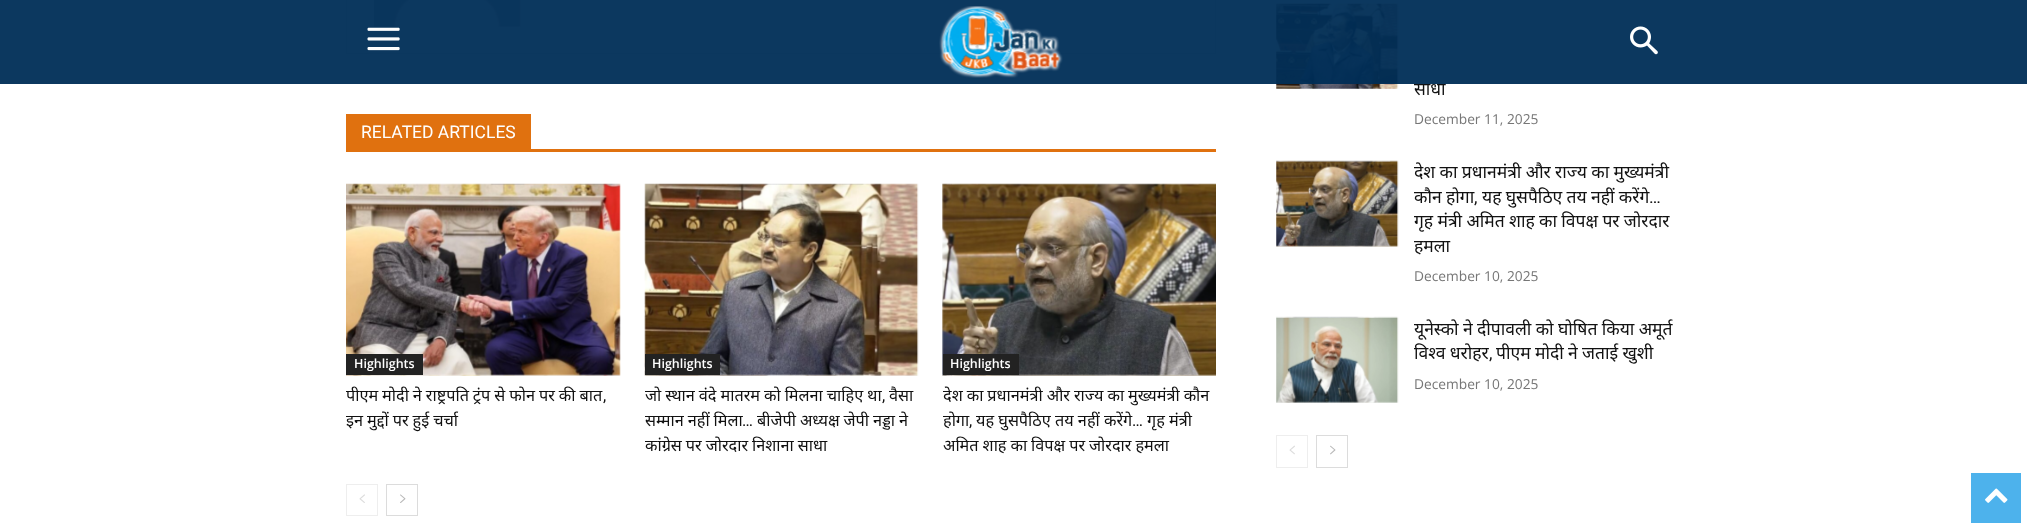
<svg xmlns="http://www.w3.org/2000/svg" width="2027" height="527">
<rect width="100%" height="100%" fill="#fff"/>
<rect x="346.5" y="-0.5" width="869" height="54" fill="none" stroke="#ededed"/>
<image x="374" y="0" width="147" height="27" href="media/4.png"/>
<image x="1276" y="3" width="123" height="86" href="media/10.png"/>
<text x="1414" y="95" style="font-family:Noto Sans;font-size:17.5px;fill:#111">साधा</text>
<rect width="2027" height="84" fill="#002e5680"/>
<rect width="2027" height="84" fill="#002e56e6"/>
<image x="367" y="27" width="33" height="24" href="media/1.png"/>
<image x="939" y="6" width="124" height="72" href="media/2.png"/>
<image x="1630" y="26" width="28" height="29" href="media/3.png"/>
<rect x="346" y="149" width="870" height="3" fill="#e0710f"/>
<rect x="346" y="114" width="185" height="35" fill="#e0710f"/>
<text x="361" y="138" style="font-family:Roboto;font-size:17.5px;fill:#fff">RELATED ARTICLES</text>
<image x="346" y="183" width="275" height="193" href="media/5.png"/>
<rect x="346" y="354" width="77" height="21" fill="#222"/>
<text x="354" y="368" style="font-family:Open Sans;font-size:12.5px;font-weight:600;fill:#fff">Highlights</text>
<text x="346" y="401" word-spacing="-0.25" style="font-family:Noto Sans;font-size:16.25px;fill:#111">पीएम मोदी ने राष्ट्रपति ट्रंप से फोन पर की बात</text>
<text x="603" y="401" style="font-family:Roboto;font-size:16.25px;fill:#111">,</text>
<text x="346" y="426" word-spacing="-0.25" style="font-family:Noto Sans;font-size:16.25px;fill:#111">इन मुद्दों पर हुई चर्चा</text>
<image x="644" y="183" width="275" height="193" href="media/6.png"/>
<rect x="645" y="354" width="75" height="21" fill="#222"/>
<text x="652" y="368" style="font-family:Open Sans;font-size:12.5px;font-weight:600;fill:#fff">Highlights</text>
<text x="645" y="401" word-spacing="-0.25" style="font-family:Noto Sans;font-size:16.25px;fill:#111">जो स्थान वंदे मातरम को मिलना चाहिए था</text>
<text x="882" y="401" style="font-family:Roboto;font-size:16.25px;fill:#111">,</text>
<text x="889" y="401" style="font-family:Noto Sans;font-size:16.25px;fill:#111">वैसा</text>
<text x="645" y="426" word-spacing="-0.25" style="font-family:Noto Sans;font-size:16.25px;fill:#111">सम्मान नहीं मिला</text>
<text x="742" y="426" style="font-family:Roboto;font-size:16.25px;fill:#111">…</text>
<text x="757" y="426" word-spacing="-0.25" style="font-family:Noto Sans;font-size:16.25px;fill:#111">बीजेपी अध्यक्ष जेपी नड्डा ने</text>
<text x="645" y="451" word-spacing="-0.25" style="font-family:Noto Sans;font-size:16.25px;fill:#111">कांग्रेस पर जोरदार निशाना साधा</text>
<image x="942" y="183" width="274" height="193" href="media/7.png"/>
<rect x="943" y="354" width="76" height="21" fill="#222"/>
<text x="950" y="368" style="font-family:Open Sans;font-size:12.5px;font-weight:600;fill:#fff">Highlights</text>
<text x="943" y="401" word-spacing="-0.25" style="font-family:Noto Sans;font-size:16.25px;fill:#111">देश का प्रधानमंत्री और राज्य का मुख्यमंत्री कौन</text>
<text x="943" y="426" style="font-family:Noto Sans;font-size:16.25px;fill:#111">होगा</text>
<text x="969" y="426" style="font-family:Roboto;font-size:16.25px;fill:#111">,</text>
<text x="976" y="426" style="font-family:Noto Sans;font-size:16.25px;fill:#111">यह घुसपैठिए तय नहीं करेंगे</text>
<text x="1132" y="426" style="font-family:Roboto;font-size:16.25px;fill:#111">…</text>
<text x="1147" y="426" style="font-family:Noto Sans;font-size:16.25px;fill:#111">गृह मंत्री</text>
<text x="943" y="451" word-spacing="-0.25" style="font-family:Noto Sans;font-size:16.25px;fill:#111">अमित शाह का विपक्ष पर जोरदार हमला</text>
<rect x="346.5" y="484.5" width="31" height="31" fill="none" stroke="#eee"/>
<image x="359" y="494" width="6" height="9" href="media/8.png"/>
<rect x="386.5" y="484.5" width="31" height="31" fill="none" stroke="#dcdcdc"/>
<image x="400" y="494" width="6" height="9" href="media/9.png"/>
<text x="1414" y="124" style="font-family:Open Sans;font-size:13.75px;fill:#767676">December 11, 2025</text>
<image x="1276" y="160" width="123" height="87" href="media/11.png"/>
<text x="1414" y="178" word-spacing="-0.25" style="font-family:Noto Sans;font-size:17.5px;fill:#111">देश का प्रधानमंत्री और राज्य का मुख्यमंत्री</text>
<text x="1414" y="203" word-spacing="-0.25" style="font-family:Noto Sans;font-size:17.5px;fill:#111">कौन होगा</text>
<text x="1474" y="203" style="font-family:Roboto;font-size:17.5px;fill:#111">,</text>
<text x="1482" y="203" word-spacing="-0.25" style="font-family:Noto Sans;font-size:17.5px;fill:#111">यह घुसपैठिए तय नहीं करेंगे</text>
<text x="1649" y="203" style="font-family:Roboto;font-size:17.5px;fill:#111">…</text>
<text x="1414" y="227" word-spacing="-0.25" style="font-family:Noto Sans;font-size:17.5px;fill:#111">गृह मंत्री अमित शाह का विपक्ष पर जोरदार</text>
<text x="1414" y="252" style="font-family:Noto Sans;font-size:17.5px;fill:#111">हमला</text>
<text x="1414" y="281" style="font-family:Open Sans;font-size:13.75px;fill:#767676">December 10, 2025</text>
<image x="1276" y="316" width="123" height="87" href="media/12.png"/>
<text x="1414" y="335" word-spacing="-0.25" style="font-family:Noto Sans;font-size:17.5px;fill:#111">यूनेस्को ने दीपावली को घोषित किया अमूर्त</text>
<text x="1414" y="359" word-spacing="-0.25" style="font-family:Noto Sans;font-size:17.5px;fill:#111">विश्व धरोहर</text>
<text x="1489" y="359" style="font-family:Roboto;font-size:17.5px;fill:#111">,</text>
<text x="1496" y="359" word-spacing="-0.25" style="font-family:Noto Sans;font-size:17.5px;fill:#111">पीएम मोदी ने जताई खुशी</text>
<text x="1414" y="389" style="font-family:Open Sans;font-size:13.75px;fill:#767676">December 10, 2025</text>
<rect x="1276.5" y="435.5" width="31" height="32" fill="none" stroke="#eee"/>
<image x="1289" y="445" width="6" height="10" href="media/13.png"/>
<rect x="1316.5" y="435.5" width="31" height="32" fill="none" stroke="#dcdcdc"/>
<image x="1330" y="445" width="6" height="10" href="media/14.png"/>
<rect x="1971" y="473" width="50" height="50" fill="#4db2ec"/>
<image x="1985" y="488" width="23" height="15" href="media/15.png"/>
</svg>
